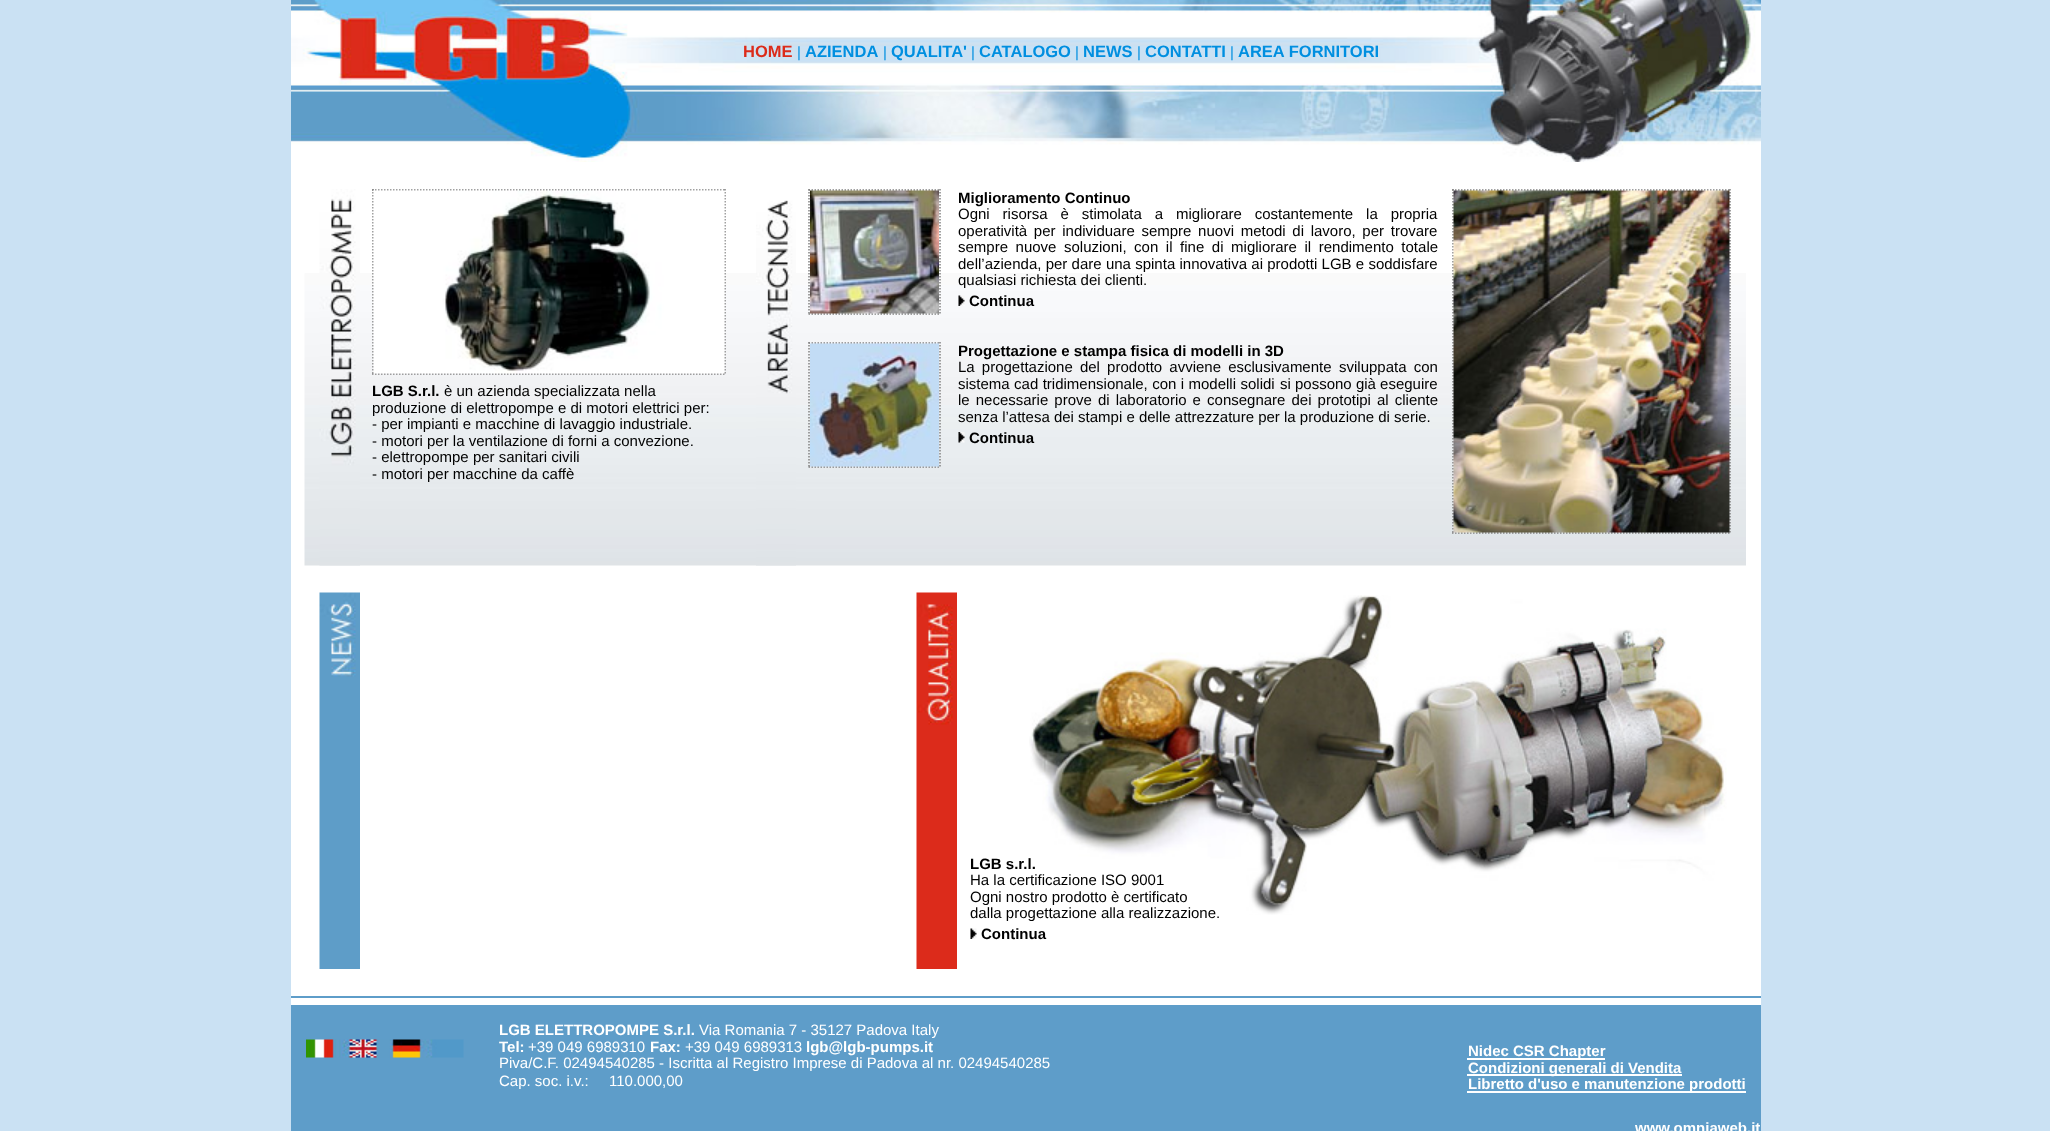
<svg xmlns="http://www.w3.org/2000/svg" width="2050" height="1131">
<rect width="100%" height="100%" fill="#cae1f3"/>
<rect x="291" y="162" width="1470" height="843" fill="#fff"/>
<image x="291" y="0" width="1470" height="162" href="media/1.png"/>
<text x="743" y="57" style="font-family:Liberation Sans;font-size:16.5px;font-weight:bold;fill:#dc2b19">HOME</text>
<text x="797" y="57" style="font-family:Liberation Sans;font-size:15px;fill:#008fe0">|</text>
<text x="805" y="57" style="font-family:Liberation Sans;font-size:16.5px;font-weight:bold;fill:#008fe0">AZIENDA</text>
<text x="883" y="57" style="font-family:Liberation Sans;font-size:15px;fill:#008fe0">|</text>
<text x="891" y="57" style="font-family:Liberation Sans;font-size:16.5px;font-weight:bold;fill:#008fe0">QUALITA'</text>
<text x="971" y="57" style="font-family:Liberation Sans;font-size:15px;fill:#008fe0">|</text>
<text x="979" y="57" style="font-family:Liberation Sans;font-size:16.5px;font-weight:bold;fill:#008fe0">CATALOGO</text>
<text x="1075" y="57" style="font-family:Liberation Sans;font-size:15px;fill:#008fe0">|</text>
<text x="1083" y="57" style="font-family:Liberation Sans;font-size:16.5px;font-weight:bold;fill:#008fe0">NEWS</text>
<text x="1137" y="57" style="font-family:Liberation Sans;font-size:15px;fill:#008fe0">|</text>
<text x="1145" y="57" style="font-family:Liberation Sans;font-size:16.5px;font-weight:bold;fill:#008fe0">CONTATTI</text>
<text x="1230" y="57" style="font-family:Liberation Sans;font-size:15px;fill:#008fe0">|</text>
<text x="1238" y="57" style="font-family:Liberation Sans;font-size:16.5px;font-weight:bold;fill:#008fe0">AREA FORNITORI</text>
<image x="304" y="273" width="1442" height="293" href="media/2.png"/>
<image x="319" y="189" width="41" height="377" href="media/3.png"/>
<path d="M372 190h354" fill="none" stroke="#838383" stroke-width="1.5" stroke-dasharray="1.5 1.5"/>
<path d="M725 189v186" fill="none" stroke="#838383" stroke-width="1.5" stroke-dasharray="1.5 1.5"/>
<path d="M372 374h354" fill="none" stroke="#838383" stroke-width="1.5" stroke-dasharray="1.5 1.5"/>
<path d="M373 189v186" fill="none" stroke="#838383" stroke-width="1.5" stroke-dasharray="1.5 1.5"/>
<image x="373" y="190" width="352" height="184" href="media/4.png"/>
<text x="372" y="396" style="font-family:Liberation Sans;font-size:15px;font-weight:bold;fill:#000">LGB S.r.l.</text>
<text x="444" y="396" style="font-family:Liberation Sans;font-size:15px;fill:#000">è un azienda specializzata nella</text>
<text x="372" y="413" style="font-family:Liberation Sans;font-size:15px;fill:#000">produzione di elettropompe e di motori elettrici per:</text>
<text x="372" y="429" style="font-family:Liberation Sans;font-size:15px;fill:#000">- per impianti e macchine di lavaggio industriale.</text>
<text x="372" y="446" style="font-family:Liberation Sans;font-size:15px;fill:#000">- motori per la ventilazione di forni a convezione.</text>
<text x="372" y="462" style="font-family:Liberation Sans;font-size:15px;fill:#000">- elettropompe per sanitari civili</text>
<text x="372" y="479" style="font-family:Liberation Sans;font-size:15px;fill:#000">- motori per macchine da caffè</text>
<image x="756" y="200" width="40" height="366" href="media/5.png"/>
<path d="M808.5 190h132" fill="none" stroke="#838383" stroke-width="1.5" stroke-dasharray="1.5 1.5"/>
<path d="M808.5 314h132" fill="none" stroke="#838383" stroke-width="1.5" stroke-dasharray="1.5 1.5"/>
<path d="M809 189v126" fill="none" stroke="#838383" stroke-width="1.5" stroke-dasharray="1.5 1.5"/>
<image x="810" y="190" width="129" height="124" href="media/6.png"/>
<path d="M940 189v126" fill="none" stroke="#838383" stroke-width="1.5" stroke-dasharray="1.5 1.5"/>
<text x="958" y="203" style="font-family:Liberation Sans;font-size:15px;font-weight:bold;fill:#000">Miglioramento Continuo</text>
<text x="958" y="219" word-spacing="8.75" style="font-family:Liberation Sans;font-size:15px;fill:#000">Ogni risorsa è stimolata a migliorare costantemente la propria</text>
<text x="958" y="236" word-spacing="2.5" style="font-family:Liberation Sans;font-size:15px;fill:#000">operatività per individuare sempre nuovi metodi di lavoro, per trovare</text>
<text x="958" y="252" word-spacing="3.4" style="font-family:Liberation Sans;font-size:15px;fill:#000">sempre nuove soluzioni, con il fine di migliorare il rendimento totale</text>
<text x="958" y="269" word-spacing="0.1" style="font-family:Liberation Sans;font-size:15px;fill:#000">dell’azienda, per dare una spinta innovativa ai prodotti LGB e soddisfare</text>
<text x="958" y="285" style="font-family:Liberation Sans;font-size:15px;fill:#000">qualsiasi richiesta dei clienti.</text>
<image x="958" y="295" width="7" height="11" href="media/7.png"/>
<text x="969" y="306" style="font-family:Liberation Sans;font-size:15px;font-weight:bold;fill:#000">Continua</text>
<path d="M808.5 343h132" fill="none" stroke="#838383" stroke-width="1.5" stroke-dasharray="1.5 1.5"/>
<path d="M808.5 467h132" fill="none" stroke="#838383" stroke-width="1.5" stroke-dasharray="1.5 1.5"/>
<path d="M809 342v126" fill="none" stroke="#838383" stroke-width="1.5" stroke-dasharray="1.5 1.5"/>
<image x="810" y="343" width="129" height="124" href="media/8.png"/>
<path d="M940 342v126" fill="none" stroke="#838383" stroke-width="1.5" stroke-dasharray="1.5 1.5"/>
<text x="958" y="356" style="font-family:Liberation Sans;font-size:15px;font-weight:bold;fill:#000">Progettazione e stampa fisica di modelli in 3D</text>
<text x="958" y="372" word-spacing="3" style="font-family:Liberation Sans;font-size:15px;fill:#000">La progettazione del prodotto avviene esclusivamente</text>
<text x="1339" y="372" word-spacing="3" style="font-family:Liberation Sans;font-size:15px;fill:#000">sviluppata con</text>
<text x="958" y="389" word-spacing="0.25" style="font-family:Liberation Sans;font-size:15px;fill:#000">sistema cad tridimensionale, con i modelli solidi</text>
<text x="1280" y="389" style="font-family:Liberation Sans;font-size:15px;fill:#000">si possono già eseguire</text>
<text x="958" y="405" word-spacing="1.9" style="font-family:Liberation Sans;font-size:15px;fill:#000">le necessarie prove di laboratorio e consegnare dei prototipi al cliente</text>
<text x="958" y="422" style="font-family:Liberation Sans;font-size:15px;fill:#000">senza l’attesa dei stampi e delle attrezzature per la produzione di serie.</text>
<image x="958" y="432" width="7" height="11" href="media/9.png"/>
<text x="969" y="443" style="font-family:Liberation Sans;font-size:15px;font-weight:bold;fill:#000">Continua</text>
<path d="M1452 190h279" fill="none" stroke="#838383" stroke-width="1.5" stroke-dasharray="1.5 1.5"/>
<path d="M1730 189v345" fill="none" stroke="#838383" stroke-width="1.5" stroke-dasharray="1.5 1.5"/>
<path d="M1452 533h279" fill="none" stroke="#838383" stroke-width="1.5" stroke-dasharray="1.5 1.5"/>
<path d="M1453 189v345" fill="none" stroke="#838383" stroke-width="1.5" stroke-dasharray="1.5 1.5"/>
<image x="1453" y="190" width="277" height="343" href="media/10.png"/>
<image x="319" y="592" width="41" height="377" href="media/11.png"/>
<image x="916" y="592" width="41" height="377" href="media/12.png"/>
<image x="1029" y="595" width="698" height="320" href="media/13.png"/>
<text x="970" y="869" style="font-family:Liberation Sans;font-size:15px;font-weight:bold;fill:#000">LGB s.r.l.</text>
<text x="970" y="885" style="font-family:Liberation Sans;font-size:15px;fill:#000">Ha la certificazione ISO 9001</text>
<text x="970" y="902" style="font-family:Liberation Sans;font-size:15px;fill:#000">Ogni nostro prodotto è certificato</text>
<text x="970" y="918" style="font-family:Liberation Sans;font-size:15px;fill:#000">dalla progettazione alla realizzazione.</text>
<image x="970" y="928" width="7" height="11" href="media/14.png"/>
<text x="981" y="939" style="font-family:Liberation Sans;font-size:15px;font-weight:bold;fill:#000">Continua</text>
<rect x="291" y="996" width="1470" height="2" fill="#5e9dc9"/>
<rect x="291" y="1005" width="1470" height="126" fill="#5e9dc9"/>
<image x="306" y="1039" width="158" height="19" href="media/15.png"/>
<text x="499" y="1035" style="font-family:Liberation Sans;font-size:15px;font-weight:bold;fill:#fff">LGB ELETTROPOMPE S.r.l.</text>
<text x="699" y="1035" style="font-family:Liberation Sans;font-size:15px;fill:#fff">Via Romania 7 - 35127 Padova Italy</text>
<text x="499" y="1052" style="font-family:Liberation Sans;font-size:15px;font-weight:bold;fill:#fff">Tel:</text>
<text x="528" y="1052" style="font-family:Liberation Sans;font-size:15px;fill:#fff">+39 049 6989310</text>
<text x="650" y="1052" style="font-family:Liberation Sans;font-size:15px;font-weight:bold;fill:#fff">Fax:</text>
<text x="685" y="1052" style="font-family:Liberation Sans;font-size:15px;fill:#fff">+39 049 6989313</text>
<text x="806" y="1052" style="font-family:Liberation Sans;font-size:15px;font-weight:bold;fill:#fff">lgb@lgb-pumps.it</text>
<rect x="1467" y="1058" width="138" height="2" fill="#fff"/>
<text x="1468" y="1056" style="font-family:Liberation Sans;font-size:15px;font-weight:bold;fill:#fff">Nidec CSR Chapter</text>
<rect x="1467" y="1074" width="215" height="2" fill="#fff"/>
<text x="1468" y="1073" style="font-family:Liberation Sans;font-size:15px;font-weight:bold;fill:#fff">Condizioni generali di Vendita</text>
<rect x="1467" y="1091" width="279" height="2" fill="#fff"/>
<text x="1468" y="1089" style="font-family:Liberation Sans;font-size:15px;font-weight:bold;fill:#fff">Libretto d'uso e manutenzione prodotti</text>
<text x="499" y="1068" style="font-family:Liberation Sans;font-size:15px;fill:#fff">Piva/C.F. 02494540285 - Iscritta al Registro Imprese di Padova al nr. 02494540285</text>
<text x="499" y="1086" style="font-family:Liberation Sans;font-size:15px;fill:#fff">Cap. soc. i.v.:</text>
<text x="609" y="1086" style="font-family:Liberation Sans;font-size:15px;fill:#fff">110.000,00</text>
<text x="1635" y="1133" style="font-family:Liberation Sans;font-size:15px;font-weight:bold;fill:#fff">www.omniaweb.it</text>
</svg>
